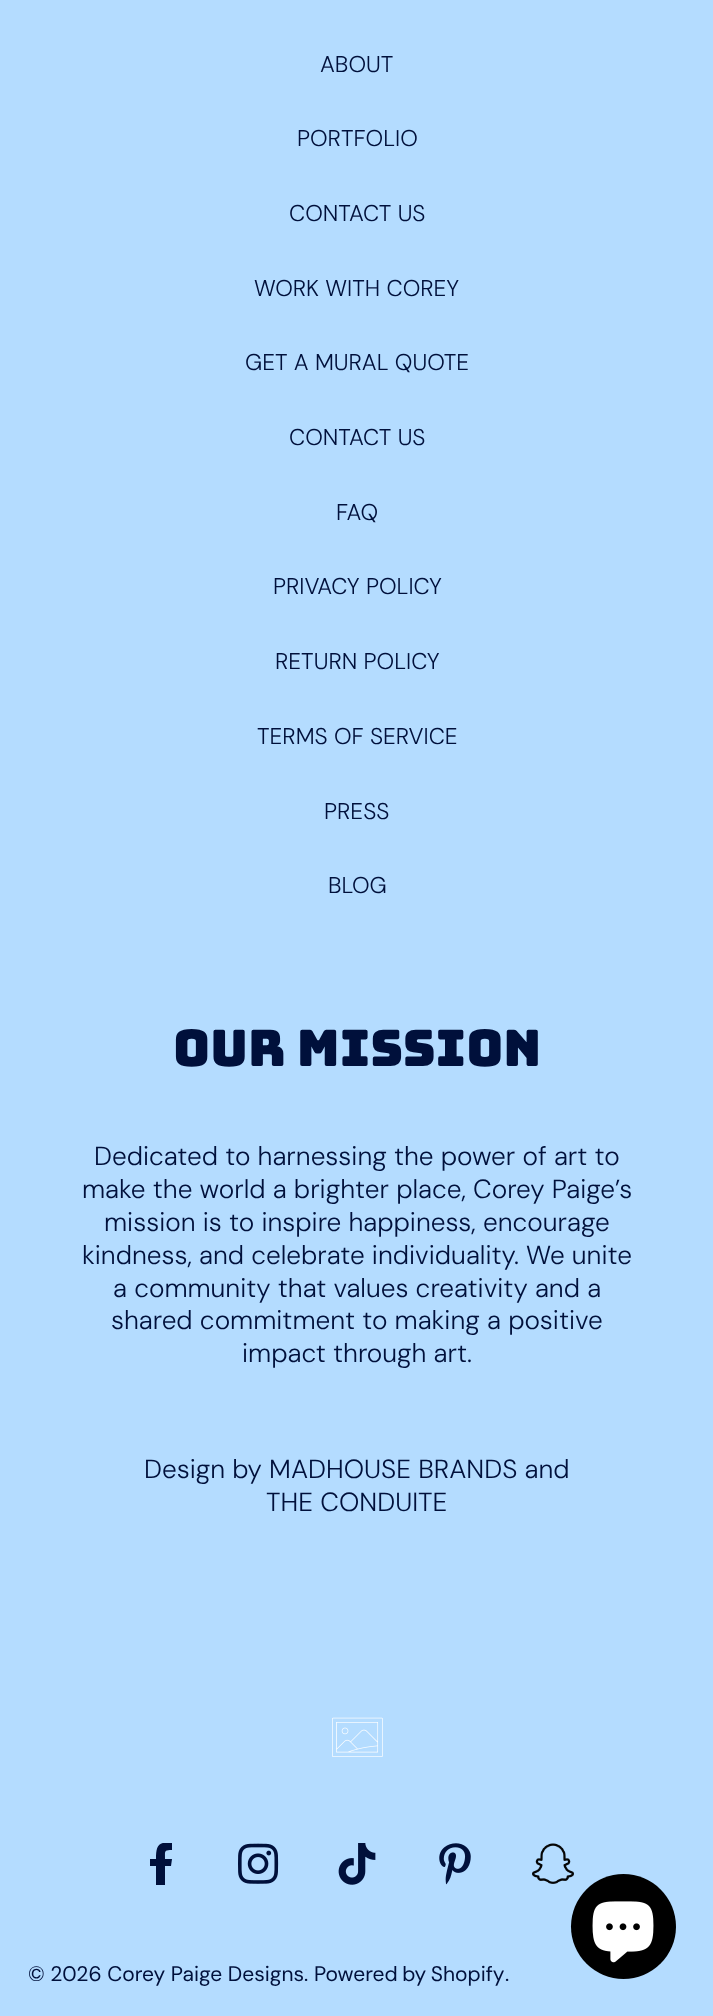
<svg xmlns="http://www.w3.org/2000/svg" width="713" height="2016">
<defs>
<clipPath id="clip1"><rect x="140" y="1843" width="42" height="42"/></clipPath>
</defs>
<rect width="100%" height="100%" fill="#b4dcff"/>
<text x="320" y="72" style="font-family:DM Sans;font-size:22.75px;font-weight:300;fill:#00103b">ABOUT</text>
<text x="297" y="146" style="font-family:DM Sans;font-size:22.75px;font-weight:300;fill:#00103b">PORTFOLIO</text>
<text x="289" y="221" style="font-family:DM Sans;font-size:22.75px;font-weight:300;fill:#00103b">CONTACT US</text>
<text x="254" y="296" style="font-family:DM Sans;font-size:22.75px;font-weight:300;fill:#00103b">WORK WITH COREY</text>
<text x="245" y="370" style="font-family:DM Sans;font-size:22.75px;font-weight:300;fill:#00103b">GET A MURAL QUOTE</text>
<text x="289" y="445" style="font-family:DM Sans;font-size:22.75px;font-weight:300;fill:#00103b">CONTACT US</text>
<text x="336" y="520" style="font-family:DM Sans;font-size:22.75px;font-weight:300;fill:#00103b">FAQ</text>
<text x="273" y="594" style="font-family:DM Sans;font-size:22.75px;font-weight:300;fill:#00103b">PRIVACY POLICY</text>
<text x="275" y="669" style="font-family:DM Sans;font-size:22.75px;font-weight:300;fill:#00103b">RETURN POLICY</text>
<text x="257" y="744" style="font-family:DM Sans;font-size:22.75px;font-weight:300;fill:#00103b">TERMS OF SERVICE</text>
<text x="324" y="819" style="font-family:DM Sans;font-size:22.75px;font-weight:300;fill:#00103b">PRESS</text>
<text x="328" y="893" style="font-family:DM Sans;font-size:22.75px;font-weight:300;fill:#00103b">BLOG</text>
<text x="173" y="1066" style="font-family:Bungee;font-size:50.5px;fill:#00103b">Our Mission</text>
<text x="94" y="1165" style="font-family:DM Sans;font-size:26.25px;font-weight:300;fill:#00103b">Dedicated to harnessing the power of art to</text>
<text x="82" y="1198" style="font-family:DM Sans;font-size:26.25px;font-weight:300;fill:#00103b">make the world a brighter place, Corey Paige’s</text>
<text x="104" y="1231" style="font-family:DM Sans;font-size:26.25px;font-weight:300;fill:#00103b">mission is to inspire happiness, encourage</text>
<text x="82" y="1264" style="font-family:DM Sans;font-size:26.25px;font-weight:300;fill:#00103b">kindness, and celebrate individuality. We unite</text>
<text x="113" y="1297" style="font-family:DM Sans;font-size:26.25px;font-weight:300;fill:#00103b">a community that values creativity and a</text>
<text x="111" y="1329" style="font-family:DM Sans;font-size:26.25px;font-weight:300;fill:#00103b">shared commitment to making a positive</text>
<text x="242" y="1362" style="font-family:DM Sans;font-size:26.25px;font-weight:300;fill:#00103b">impact through art.</text>
<text x="144" y="1478" style="font-family:DM Sans;font-size:26.25px;font-weight:300;fill:#00103b">Design by MADHOUSE BRANDS and</text>
<text x="266" y="1511" style="font-family:DM Sans;font-size:26.25px;font-weight:300;fill:#00103b">THE CONDUITE</text>
<image x="332" y="1717" width="51" height="40" href="media/1.png"/>
<g clip-path="url(#clip1)">
<path d="M171 1866l1-7h-7c0-8-1-9 7-9v-7c-14-2-16 3-16 16h-6v7h6v19h9v-19z" fill="#00103b"/>
</g>
<image x="238" y="1843" width="41" height="41" href="media/2.png"/>
<image x="338" y="1843" width="38" height="42" href="media/3.png"/>
<image x="439" y="1843" width="32" height="42" href="media/4.png"/>
<image x="532" y="1843" width="42" height="41" href="media/5.png"/>
<text x="28" y="1981" style="font-family:DM Sans;font-size:21px;fill:#00103b">© 2026 Corey Paige Designs.</text>
<text x="314" y="1981" word-spacing="-1" style="font-family:DM Sans;font-size:21px;fill:#00103b">Powered by Shopify</text>
<text x="505" y="1981" style="font-family:DM Sans;font-size:21px;fill:#00103b">.</text>
<circle cx="623.5" cy="1926.5" r="52.5" fill="#000"/>
<image x="592" y="1901" width="62" height="62" href="media/6.png"/>
</svg>
